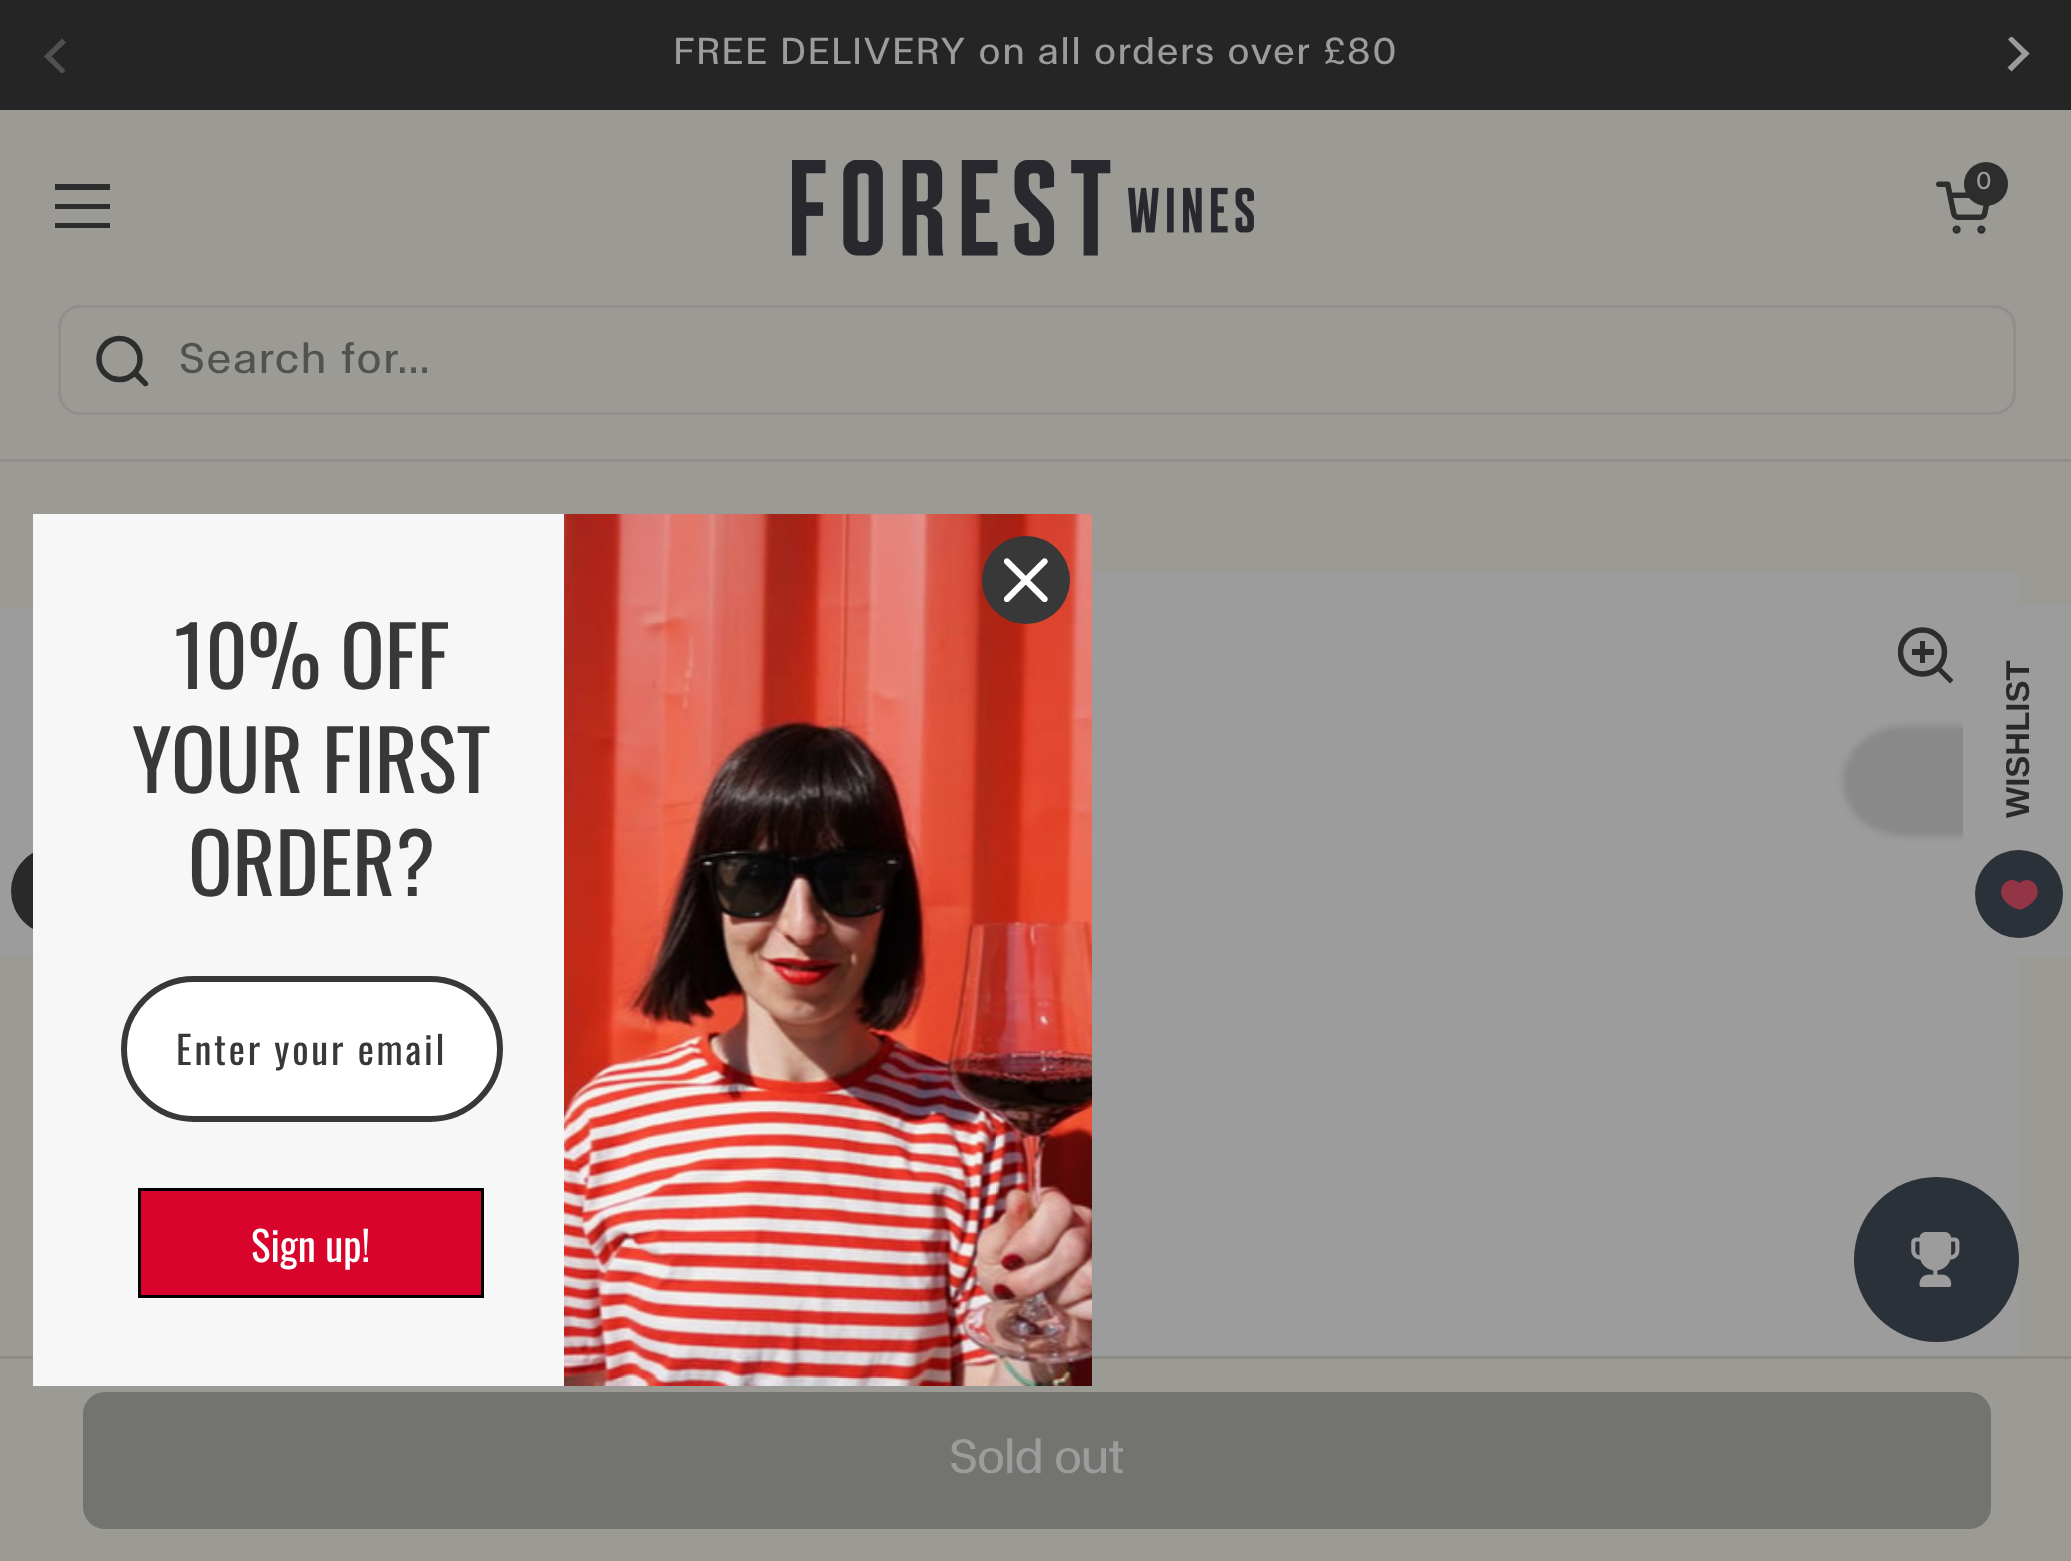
<svg xmlns="http://www.w3.org/2000/svg" width="2071" height="1561">
<defs>
<clipPath id="clip1"><rect x="1898" y="627" width="57" height="58"/></clipPath>
</defs>
<rect width="100%" height="100%" fill="#9b9a95"/>
<rect width="2071" height="110" fill="#252525"/>
<path d="M66 42.5l-18 17.5l-4-3.5l18-18z" fill="#505050"/>
<path d="M61 73l-17-16.5l4-4l17.5 18l-2.5 2.5z" fill="#505050"/>
<text x="674" y="64" style="font-family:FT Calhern;font-size:38.5px;letter-spacing:2.75px;fill:#9c9c9c">FREE DELIVERY on all orders over £80</text>
<path d="M2007.5 67.5l18-17.5l4 3.5l-18 18z" fill="#9c9c9c"/>
<path d="M2012.5 37l17 16.5l-4 4l-17.5-18l2.5-2.5z" fill="#9c9c9c"/>
<image x="792" y="160" width="462" height="96" href="media/1.png"/>
<image x="1936" y="181" width="54" height="53" href="media/2.png"/>
<circle cx="1986" cy="184" r="22" fill="#2d2d2d"/>
<text x="1976" y="189" style="font-family:FT Calhern;font-size:25px;letter-spacing:2.75px;fill:#9c9c9c">0</text>
<rect x="55" y="184" width="55" height="6" fill="#2d2d2d"/>
<rect x="55" y="204" width="55" height="5" fill="#2d2d2d"/>
<rect x="55" y="223" width="55" height="5" fill="#2d2d2d"/>
<rect y="459" width="2071" height="3" fill="#908f8b"/>
<rect x="59.5" y="306.5" width="1955" height="107" rx="20.5" fill="none" stroke="#908f8b" stroke-width="3"/>
<circle cx="119.5" cy="359" r="20.5" fill="none" stroke="#2d2d2d" stroke-width="5.5"/>
<path d="M138 372l-2-2l-4 4l2 2zm5.5 13.5c2.5 2.5 6.5-1 4-3.5zm-9.5-9.5l9.5 9.5l4-3.5l-9.5-10z" fill="#2d2d2d"/>
<text x="179" y="373" style="font-family:FT Calhern;font-size:44px;letter-spacing:2.75px;fill:#525251">Search for...</text>
<rect y="1356" width="2071" height="3" fill="#8c8b85"/>
<image x="564" y="514" width="528" height="872" href="media/4.png"/>
<circle cx="1026" cy="580" r="44" fill="#383838"/>
<image x="1004" y="558" width="44" height="44" href="media/3.png"/>
<path d="M0 954v-346h50c33 0 60 27 60 60v226c0 33-27 60-60 60z" fill="#9c9c9c"/>
<circle cx="55" cy="891" r="44" fill="#292929"/>
<rect x="33" y="514" width="531" height="872" fill="#f7f7f7"/>
<text x="174" y="689" style="font-family:Oswald;font-size:82.5px;fill:#383838">10% OFF</text>
<text x="132" y="793" style="font-family:Oswald;font-size:82.5px;fill:#383838">YOUR FIRST</text>
<text x="188" y="896" style="font-family:Oswald;font-size:82.5px;fill:#383838">ORDER?</text>
<rect x="124" y="979" width="376" height="140" rx="70" fill="#fff" stroke="#383838" stroke-width="6"/>
<text x="176" y="1065" style="font-family:Oswald;font-size:38.5px;letter-spacing:2.75px;fill:#383838">Enter your email</text>
<rect x="139.5" y="1189.5" width="343" height="107" fill="#d8042c" stroke="#000" stroke-width="3"/>
<text x="251" y="1262" style="font-family:Oswald;font-size:41px;fill:#fff">Sign up!</text>
<image x="1092" y="572" width="926" height="784" href="media/6.png"/>
<rect x="1843" y="726" width="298" height="110" rx="61" fill="#898989" filter="blur(3px)"/>
<path d="M1963 896v-230c0-34 28-61 61-61h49v352h-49c-33 0-61-27-61-61z" fill="#9c9c9c"/>
<text x="2029" y="818" transform="rotate(-90 2029 818)" style="font-family:Liberation Sans;font-size:33px;font-weight:bold;fill:#292929">WISHLIST</text>
<circle cx="2019" cy="894" r="44" fill="#2b3139"/>
<path d="M2019.5 883c-11.5-10.5-29.5 8.5-9.5 22.5c2.5 1.5 6.5 4 9.5 4c3 0 7-2.5 9-4c20.5-14 2-33-9-22.5z" fill="#943545"/>
<circle cx="1936.5" cy="1259.5" r="82.5" fill="#2b3139"/>
<image x="1911" y="1232" width="49" height="55" href="media/5.png"/>
<g clip-path="url(#clip1)">
<circle cx="1922.5" cy="652" r="22" fill="none" stroke="#2d2d2d" stroke-width="5.5"/>
</g>
<rect x="1920" y="641" width="5" height="22" fill="#2d2d2d"/>
<rect x="1912" y="649" width="22" height="6" fill="#2d2d2d"/>
<path d="M1937 670.5l3.5-3.5l13 13l-3.5 3.5z" fill="#2d2d2d"/>
<rect x="84.5" y="1393.5" width="1905" height="134" rx="20.5" fill="#737370" stroke="#737370" stroke-width="3"/>
<text x="949" y="1473" style="font-family:FT Calhern;font-size:49.5px;fill:#9c9c9c">Sold out</text>
</svg>
